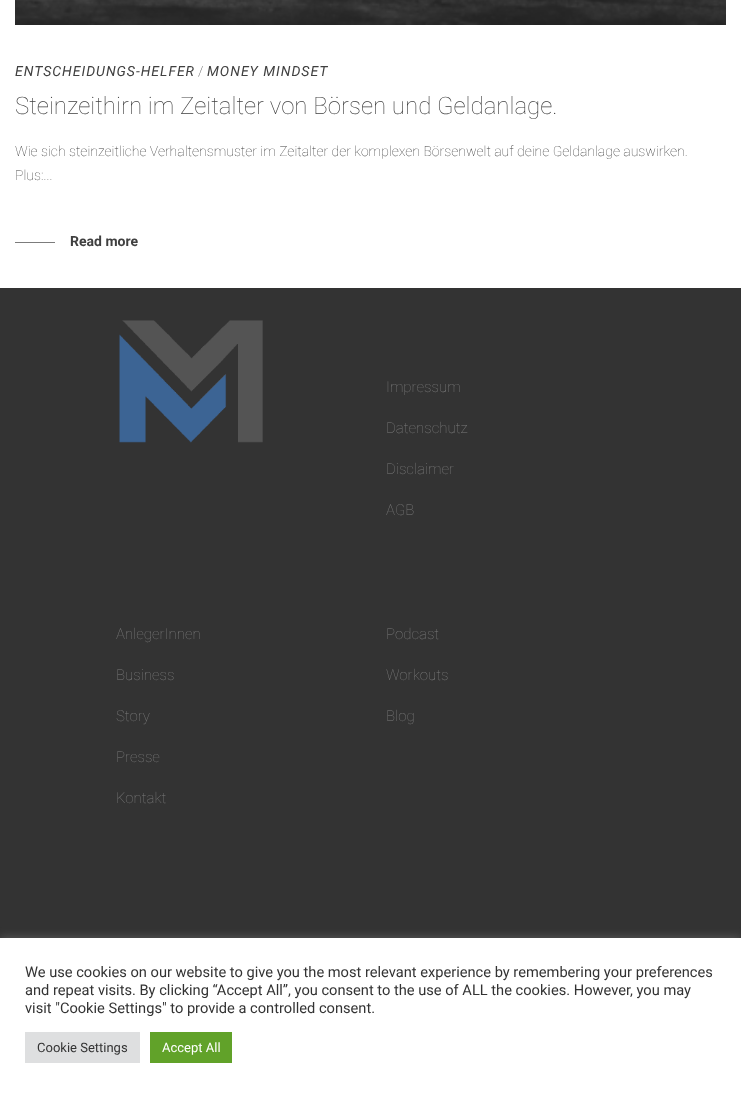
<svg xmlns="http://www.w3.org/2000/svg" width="741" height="1093">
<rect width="100%" height="100%" fill="#fff"/>
<image x="15" y="0" width="711" height="25" href="media/1.png"/>
<text x="15" y="76" style="font-family:Roboto;font-size:14px;font-style:italic;letter-spacing:1px;fill:#404040">ENTSCHEIDUNGS-HELFER</text>
<text x="198" y="76" style="font-family:Roboto;font-size:14px;font-weight:100;fill:#404040">/</text>
<text x="207" y="76" style="font-family:Roboto;font-size:14px;font-style:italic;letter-spacing:1px;fill:#404040">MONEY MINDSET</text>
<text x="15" y="114" style="font-family:Roboto;font-size:24px;font-weight:100;fill:#404040">Steinzeithirn im Zeitalter von Börsen und Geldanlage.</text>
<text x="15" y="156" style="font-family:Roboto;font-size:14px;font-weight:100;fill:#404040">Wie sich steinzeitliche Verhaltensmuster im Zeitalter der komplexen Börsenwelt auf deine Geldanlage auswirken.</text>
<text x="15" y="180" style="font-family:Roboto;font-size:14px;font-weight:100;fill:#404040">Plus:...</text>
<rect x="15" y="242" width="40" height="1" fill="#7c7c7c"/>
<text x="70" y="246" style="font-family:Roboto;font-size:14px;font-weight:bold;fill:#404040">Read more</text>
<rect y="288" width="741" height="650" fill="#333"/>
<image x="119" y="320" width="144" height="123" href="media/2.png"/>
<text x="386" y="392" style="font-family:Roboto;font-size:15px;font-weight:100;fill:#7c7c7c">Impressum</text>
<text x="386" y="433" style="font-family:Roboto;font-size:15px;font-weight:100;fill:#7c7c7c">Datenschutz</text>
<text x="386" y="474" style="font-family:Roboto;font-size:15px;font-weight:100;fill:#7c7c7c">Disclaimer</text>
<text x="386" y="515" style="font-family:Roboto;font-size:15px;font-weight:100;fill:#7c7c7c">AGB</text>
<text x="116" y="639" style="font-family:Roboto;font-size:15px;font-weight:100;fill:#7c7c7c">AnlegerInnen</text>
<text x="116" y="680" style="font-family:Roboto;font-size:15px;font-weight:100;fill:#7c7c7c">Business</text>
<text x="116" y="721" style="font-family:Roboto;font-size:15px;font-weight:100;fill:#7c7c7c">Story</text>
<text x="116" y="762" style="font-family:Roboto;font-size:15px;font-weight:100;fill:#7c7c7c">Presse</text>
<text x="116" y="803" style="font-family:Roboto;font-size:15px;font-weight:100;fill:#7c7c7c">Kontakt</text>
<text x="386" y="639" style="font-family:Roboto;font-size:15px;font-weight:100;fill:#7c7c7c">Podcast</text>
<text x="386" y="680" style="font-family:Roboto;font-size:15px;font-weight:100;fill:#7c7c7c">Workouts</text>
<text x="386" y="721" style="font-family:Roboto;font-size:15px;font-weight:100;fill:#7c7c7c">Blog</text>
<rect y="937" width="741" height="155" fill="#acabab4d" filter="blur(5px)"/>
<rect y="938" width="741" height="155" fill="#fff"/>
<text x="25" y="977" style="font-family:Roboto;font-size:14.65px;fill:#333">We use cookies on our website to give you the most relevant experience by remembering your preferences</text>
<text x="25" y="995" style="font-family:Roboto;font-size:14.65px;fill:#333">and repeat visits. By clicking “Accept All”, you consent to the use of ALL the cookies. However, you may</text>
<text x="25" y="1013" style="font-family:Roboto;font-size:14.65px;fill:#333">visit "Cookie Settings" to provide a controlled consent.</text>
<rect x="25" y="1032" width="115" height="31" fill="#dedfe0"/>
<text x="37" y="1052" style="font-family:Roboto;font-size:13px;fill:#333">Cookie Settings</text>
<rect x="150" y="1032" width="82" height="31" fill="#61a229"/>
<text x="162" y="1052" style="font-family:Roboto;font-size:13px;fill:#fff">Accept All</text>
</svg>
